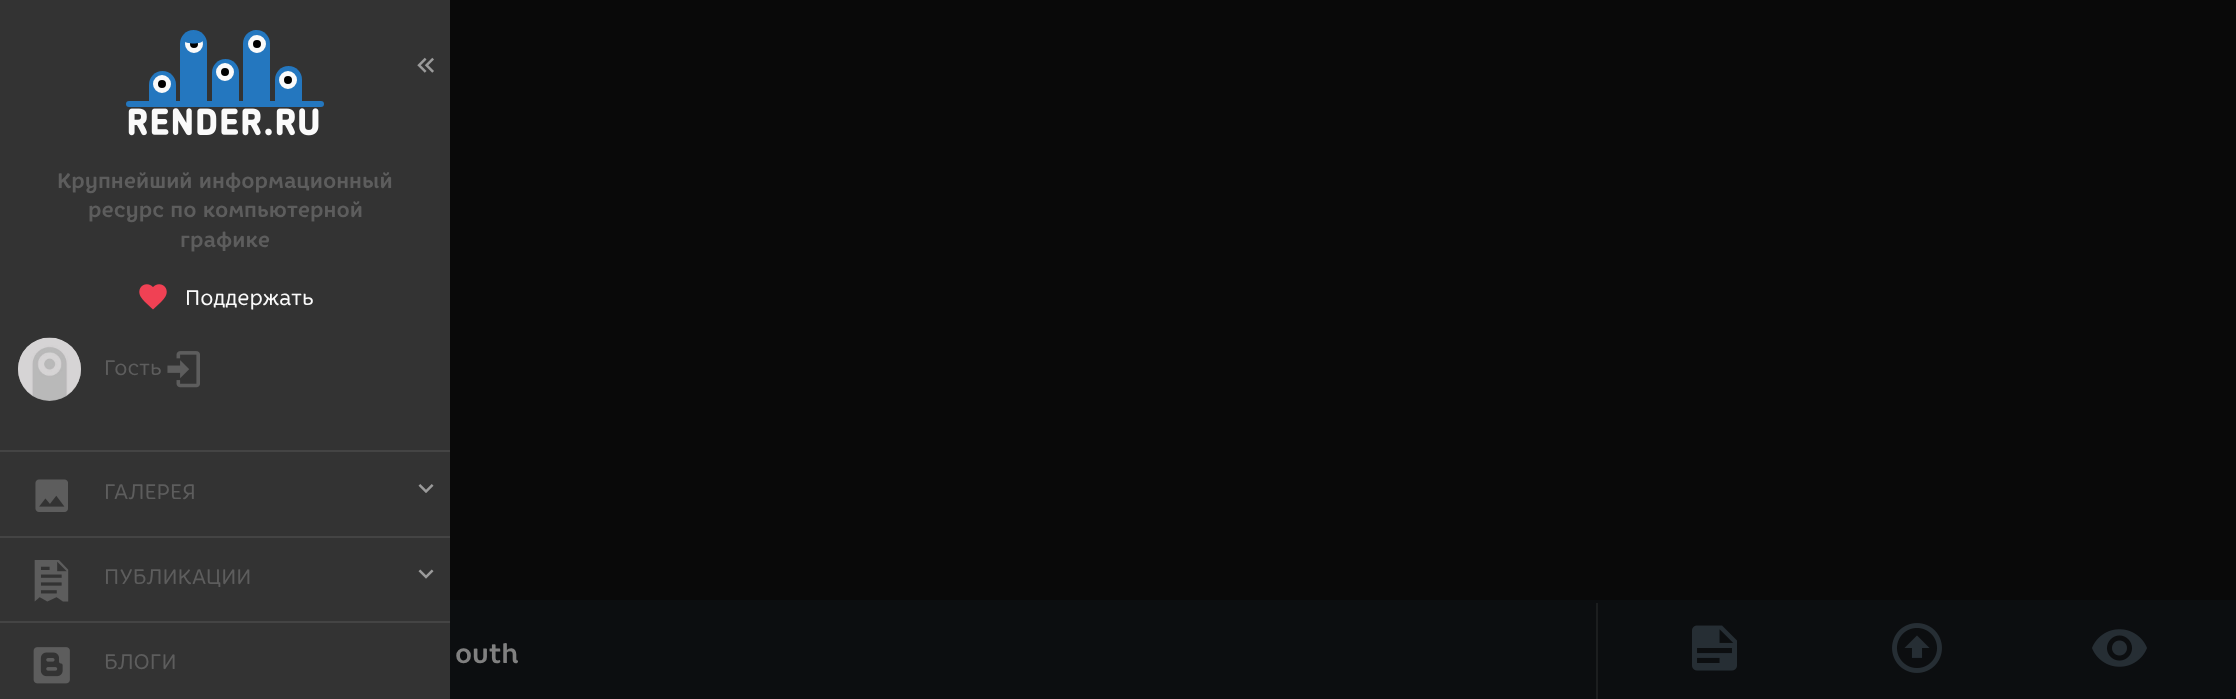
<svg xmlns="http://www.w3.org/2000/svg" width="2236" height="699">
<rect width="100%" height="100%" fill="#090909"/>
<rect width="450" height="699" fill="#333"/>
<image x="417" y="57" width="17" height="16" href="media/1.png"/>
<image x="128" y="108" width="191" height="28" href="media/2.png"/>
<rect x="126" y="101" width="198" height="6" rx="3" fill="#2477bf"/>
<path d="M162.5 71c7.5 0 13.5 6 13.5 13.5v22.5h-27v-22.5c0-7.5 6-13.5 13.5-13.5z" fill="#2477bf"/>
<circle cx="162" cy="84" r="6.5" fill="#000" stroke="#fafafa" stroke-width="5"/>
<path d="M193.5 30c7.5 0 13.5 6 13.5 13.5v63.5h-27v-63.5c0-7.5 6-13.5 13.5-13.5z" fill="#2477bf"/>
<circle cx="194" cy="44" r="6.5" fill="#000" stroke="#fafafa" stroke-width="5"/>
<path d="M193.5 33c3.5 0 10.5 .5 10.5 5c0 5-7 5.5-10.5 5.5c-3.5 0-10.5-.5-10.5-5.5c0-4.5 7-5 10.5-5z" fill="#2477bf"/>
<path d="M225.5 59c7.5 0 13.5 6 13.5 13.5v34.5h-27v-34.5c0-7.5 6-13.5 13.5-13.5z" fill="#2477bf"/>
<circle cx="225" cy="72" r="6.5" fill="#000" stroke="#fafafa" stroke-width="5"/>
<path d="M256.5 30c7.5 0 13.5 6 13.5 13.5v63.5h-27v-63.5c0-7.5 6-13.5 13.5-13.5z" fill="#2477bf"/>
<circle cx="257" cy="44" r="6.5" fill="#000" stroke="#fafafa" stroke-width="5"/>
<path d="M288.5 66c7.5 0 13.5 6 13.5 13.5v27.5h-27v-27.5c0-7.5 6-13.5 13.5-13.5z" fill="#2477bf"/>
<circle cx="288" cy="80" r="6.5" fill="#000" stroke="#fafafa" stroke-width="5"/>
<text x="57" y="188" style="font-family:'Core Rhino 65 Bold';font-size:21px;font-weight:bold;fill:#5d5d5d">Крупнейший информационный</text>
<text x="88" y="217" style="font-family:'Core Rhino 65 Bold';font-size:21px;font-weight:bold;fill:#5d5d5d">ресурс по компьютерной</text>
<text x="180" y="247" style="font-family:'Core Rhino 65 Bold';font-size:21px;font-weight:bold;fill:#5d5d5d">графике</text>
<image x="139" y="284" width="28" height="26" href="media/3.png"/>
<text x="185" y="305" style="font-family:'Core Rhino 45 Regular';font-size:21px;fill:#fafafa">Поддержать</text>
<circle cx="49.5" cy="369.5" r="31.5" fill="#aaa"/>
<image x="18" y="337" width="63" height="64" href="media/4.png"/>
<text x="104" y="375" style="font-family:'Core Rhino 45 Regular';font-size:21px;fill:#5d5d5d">Гость</text>
<image x="167" y="351" width="33" height="37" href="media/5.png"/>
<rect y="450" width="450" height="2" fill="#444"/>
<image x="35" y="479" width="33" height="33" href="media/6.png"/>
<text x="104" y="499" style="font-family:'Core Rhino 45 Regular';font-size:21px;fill:#5d5d5d">ГАЛЕРЕЯ</text>
<image x="418" y="484" width="16" height="9" href="media/7.png"/>
<rect y="536" width="450" height="2" fill="#444"/>
<image x="34" y="560" width="35" height="42" href="media/8.png"/>
<text x="104" y="584" style="font-family:'Core Rhino 45 Regular';font-size:21px;fill:#5d5d5d">ПУБЛИКАЦИИ</text>
<image x="418" y="569" width="16" height="10" href="media/9.png"/>
<rect y="621" width="450" height="2" fill="#444"/>
<image x="33" y="647" width="37" height="37" href="media/10.png"/>
<text x="104" y="669" style="font-family:'Core Rhino 45 Regular';font-size:21px;fill:#5d5d5d">БЛОГИ</text>
<rect x="450" y="600" width="1786" height="99" fill="#0c0e10"/>
<text x="455" y="663" style="font-family:'Core Rhino 65 Bold';font-size:27px;font-weight:bold;fill:#808080">outh</text>
<rect x="1596" y="603" width="2" height="96" fill="#1c1e1f"/>
<image x="1692" y="625" width="45" height="46" href="media/11.png"/>
<image x="1892" y="623" width="50" height="50" href="media/12.png"/>
<image x="2092" y="629" width="55" height="38" href="media/13.png"/>
</svg>
